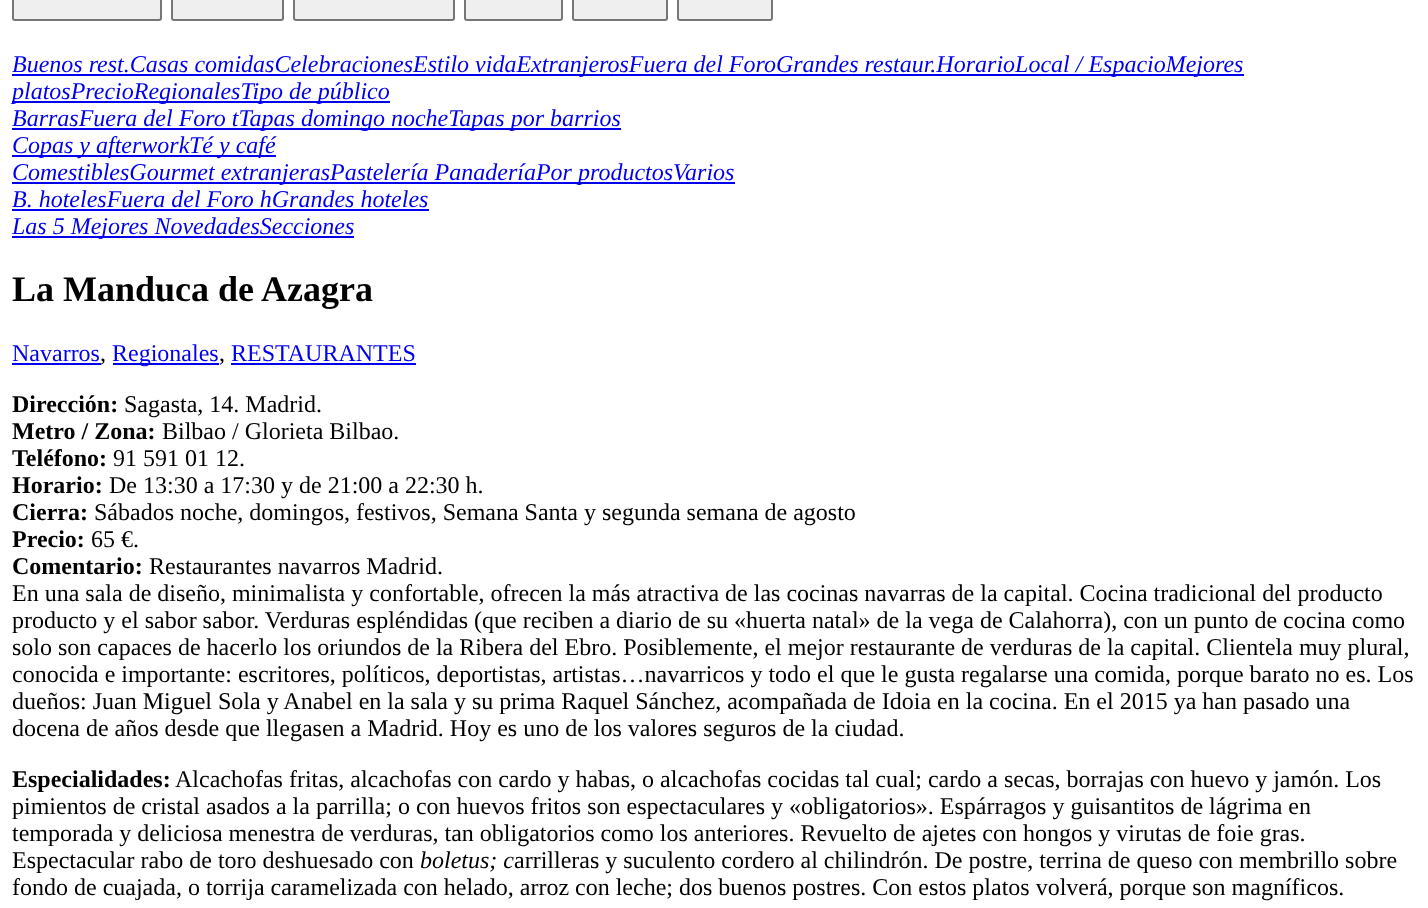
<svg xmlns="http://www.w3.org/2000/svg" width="1428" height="908">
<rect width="100%" height="100%" fill="#fff"/>
<rect x="13" y="-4" width="148" height="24" rx="2" fill="#efefef" stroke="#767676" stroke-width="2"/>
<rect x="172" y="-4" width="111" height="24" rx="2" fill="#efefef" stroke="#767676" stroke-width="2"/>
<rect x="294" y="-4" width="160" height="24" rx="2" fill="#efefef" stroke="#767676" stroke-width="2"/>
<rect x="465" y="-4" width="97" height="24" rx="2" fill="#efefef" stroke="#767676" stroke-width="2"/>
<rect x="573" y="-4" width="94" height="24" rx="2" fill="#efefef" stroke="#767676" stroke-width="2"/>
<rect x="678" y="-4" width="94" height="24" rx="2" fill="#efefef" stroke="#767676" stroke-width="2"/>
<rect x="12" y="74" width="1232" height="2" fill="#00e"/>
<text x="12" y="72" style="font-family:Liberation Serif;font-size:24px;font-style:italic;fill:#00e">Buenos rest.Casas comidasCelebracionesEstilo vidaExtranjerosFuera del ForoGrandes restaur.HorarioLocal / EspacioMejores</text>
<rect x="12" y="101" width="378" height="2" fill="#00e"/>
<text x="12" y="99" style="font-family:Liberation Serif;font-size:24px;font-style:italic;fill:#00e">platosPrecioRegionalesTipo de público</text>
<rect x="12" y="128" width="609" height="2" fill="#00e"/>
<text x="12" y="126" style="font-family:Liberation Serif;font-size:24px;font-style:italic;fill:#00e">BarrasFuera del Foro tTapas domingo nocheTapas por barrios</text>
<rect x="12" y="155" width="177" height="2" fill="#00e"/>
<text x="12" y="153" style="font-family:Liberation Serif;font-size:24px;font-style:italic;fill:#00e">Copas y afterwork</text>
<rect x="189" y="155" width="87" height="2" fill="#00e"/>
<text x="189" y="153" style="font-family:Liberation Serif;font-size:24px;font-style:italic;fill:#00e">Té y café</text>
<rect x="12" y="182" width="723" height="2" fill="#00e"/>
<text x="12" y="180" style="font-family:Liberation Serif;font-size:24px;font-style:italic;fill:#00e">ComestiblesGourmet extranjerasPastelería PanaderíaPor productosVarios</text>
<text x="12" y="207" style="font-family:Liberation Serif;font-size:24px;font-style:italic;fill:#00e">B. hotelesFuera del Foro hGrandes hoteles</text>
<rect x="12" y="209" width="417" height="2" fill="#00e"/>
<rect x="12" y="236" width="342" height="2" fill="#00e"/>
<text x="12" y="234" style="font-family:Liberation Serif;font-size:24px;font-style:italic;fill:#00e">Las 5 Mejores NovedadesSecciones</text>
<text x="12" y="301" style="font-family:Liberation Serif;font-size:36px;font-weight:bold;fill:#000">La Manduca de Azagra</text>
<text x="12" y="361" style="font-family:Liberation Serif;font-size:24px;fill:#00e">Navarros</text>
<rect x="12" y="363" width="89" height="2" fill="#00e"/>
<text x="100" y="361" style="font-family:Liberation Serif;font-size:24px;fill:#000">,</text>
<rect x="113" y="363" width="106" height="2" fill="#00e"/>
<text x="112" y="361" style="font-family:Liberation Serif;font-size:24px;fill:#00e">Regionales</text>
<text x="219" y="361" style="font-family:Liberation Serif;font-size:24px;fill:#000">,</text>
<text x="231" y="361" style="font-family:Liberation Serif;font-size:24px;fill:#00e">RESTAURANTES</text>
<rect x="231" y="363" width="185" height="2" fill="#00e"/>
<text x="12" y="412" style="font-family:Liberation Serif;font-size:24px;font-weight:bold;fill:#000">Dirección:</text>
<text x="124" y="412" style="font-family:Liberation Serif;font-size:24px;fill:#000">Sagasta, 14. Madrid.</text>
<text x="12" y="439" style="font-family:Liberation Serif;font-size:24px;font-weight:bold;fill:#000">Metro / Zona:</text>
<text x="162" y="439" style="font-family:Liberation Serif;font-size:24px;fill:#000">Bilbao / Glorieta Bilbao.</text>
<text x="12" y="466" style="font-family:Liberation Serif;font-size:24px;font-weight:bold;fill:#000">Teléfono:</text>
<text x="113" y="466" style="font-family:Liberation Serif;font-size:24px;fill:#000">91 591 01 12.</text>
<text x="12" y="493" style="font-family:Liberation Serif;font-size:24px;font-weight:bold;fill:#000">Horario:</text>
<text x="109" y="493" style="font-family:Liberation Serif;font-size:24px;fill:#000">De 13:30 a 17:30 y de 21:00 a 22:30 h.</text>
<text x="12" y="520" style="font-family:Liberation Serif;font-size:24px;font-weight:bold;fill:#000">Cierra:</text>
<text x="94" y="520" style="font-family:Liberation Serif;font-size:24px;fill:#000">Sábados noche, domingos, festivos, Semana Santa y segunda semana de agosto</text>
<text x="12" y="547" style="font-family:Liberation Serif;font-size:24px;font-weight:bold;fill:#000">Precio:</text>
<text x="91" y="547" style="font-family:Liberation Serif;font-size:24px;fill:#000">65 €.</text>
<text x="12" y="574" style="font-family:Liberation Serif;font-size:24px;font-weight:bold;fill:#000">Comentario:</text>
<text x="149" y="574" style="font-family:Liberation Serif;font-size:24px;fill:#000">Restaurantes navarros Madrid.</text>
<text x="12" y="601" style="font-family:Liberation Serif;font-size:24px;fill:#000">En una sala de diseño, minimalista y confortable, ofrecen la más atractiva de las cocinas navarras de la capital. Cocina tradicional del producto</text>
<text x="12" y="628" style="font-family:Liberation Serif;font-size:24px;fill:#000">producto y el sabor sabor. Verduras espléndidas (que reciben a diario de su «huerta natal» de la vega de Calahorra), con un punto de cocina como</text>
<text x="12" y="655" style="font-family:Liberation Serif;font-size:24px;fill:#000">solo son capaces de hacerlo los oriundos de la Ribera del Ebro. Posiblemente, el mejor restaurante de verduras de la capital. Clientela muy plural,</text>
<text x="12" y="682" style="font-family:Liberation Serif;font-size:24px;fill:#000">conocida e importante: escritores, políticos, deportistas, artistas…navarricos y todo el que le gusta regalarse una comida, porque barato no es. Los</text>
<text x="12" y="709" style="font-family:Liberation Serif;font-size:24px;fill:#000">dueños: Juan Miguel Sola y Anabel en la sala y su prima Raquel Sánchez, acompañada de Idoia en la cocina. En el 2015 ya han pasado una</text>
<text x="12" y="736" style="font-family:Liberation Serif;font-size:24px;fill:#000">docena de años desde que llegasen a Madrid. Hoy es uno de los valores seguros de la ciudad.</text>
<text x="12" y="787" style="font-family:Liberation Serif;font-size:24px;font-weight:bold;fill:#000">Especialidades:</text>
<text x="175" y="787" style="font-family:Liberation Serif;font-size:24px;fill:#000">Alcachofas fritas, alcachofas con cardo y habas, o alcachofas cocidas tal cual; cardo a secas, borrajas con huevo y jamón. Los</text>
<text x="12" y="814" style="font-family:Liberation Serif;font-size:24px;fill:#000">pimientos de cristal asados a la parrilla; o con huevos fritos son espectaculares y «obligatorios». Espárragos y guisantitos de lágrima en</text>
<text x="12" y="841" style="font-family:Liberation Serif;font-size:24px;fill:#000">temporada y deliciosa menestra de verduras, tan obligatorios como los anteriores. Revuelto de ajetes con hongos y virutas de foie gras.</text>
<text x="12" y="868" style="font-family:Liberation Serif;font-size:24px;fill:#000">Espectacular rabo de toro deshuesado con</text>
<text x="420" y="868" style="font-family:Liberation Serif;font-size:24px;font-style:italic;fill:#000">boletus; c</text>
<text x="514" y="868" style="font-family:Liberation Serif;font-size:24px;fill:#000">arrilleras y suculento cordero al chilindrón. De postre, terrina de queso con membrillo sobre</text>
<text x="12" y="895" style="font-family:Liberation Serif;font-size:24px;fill:#000">fondo de cuajada, o torrija caramelizada con helado, arroz con leche; dos buenos postres. Con estos platos volverá, porque son magníficos.</text>
</svg>
